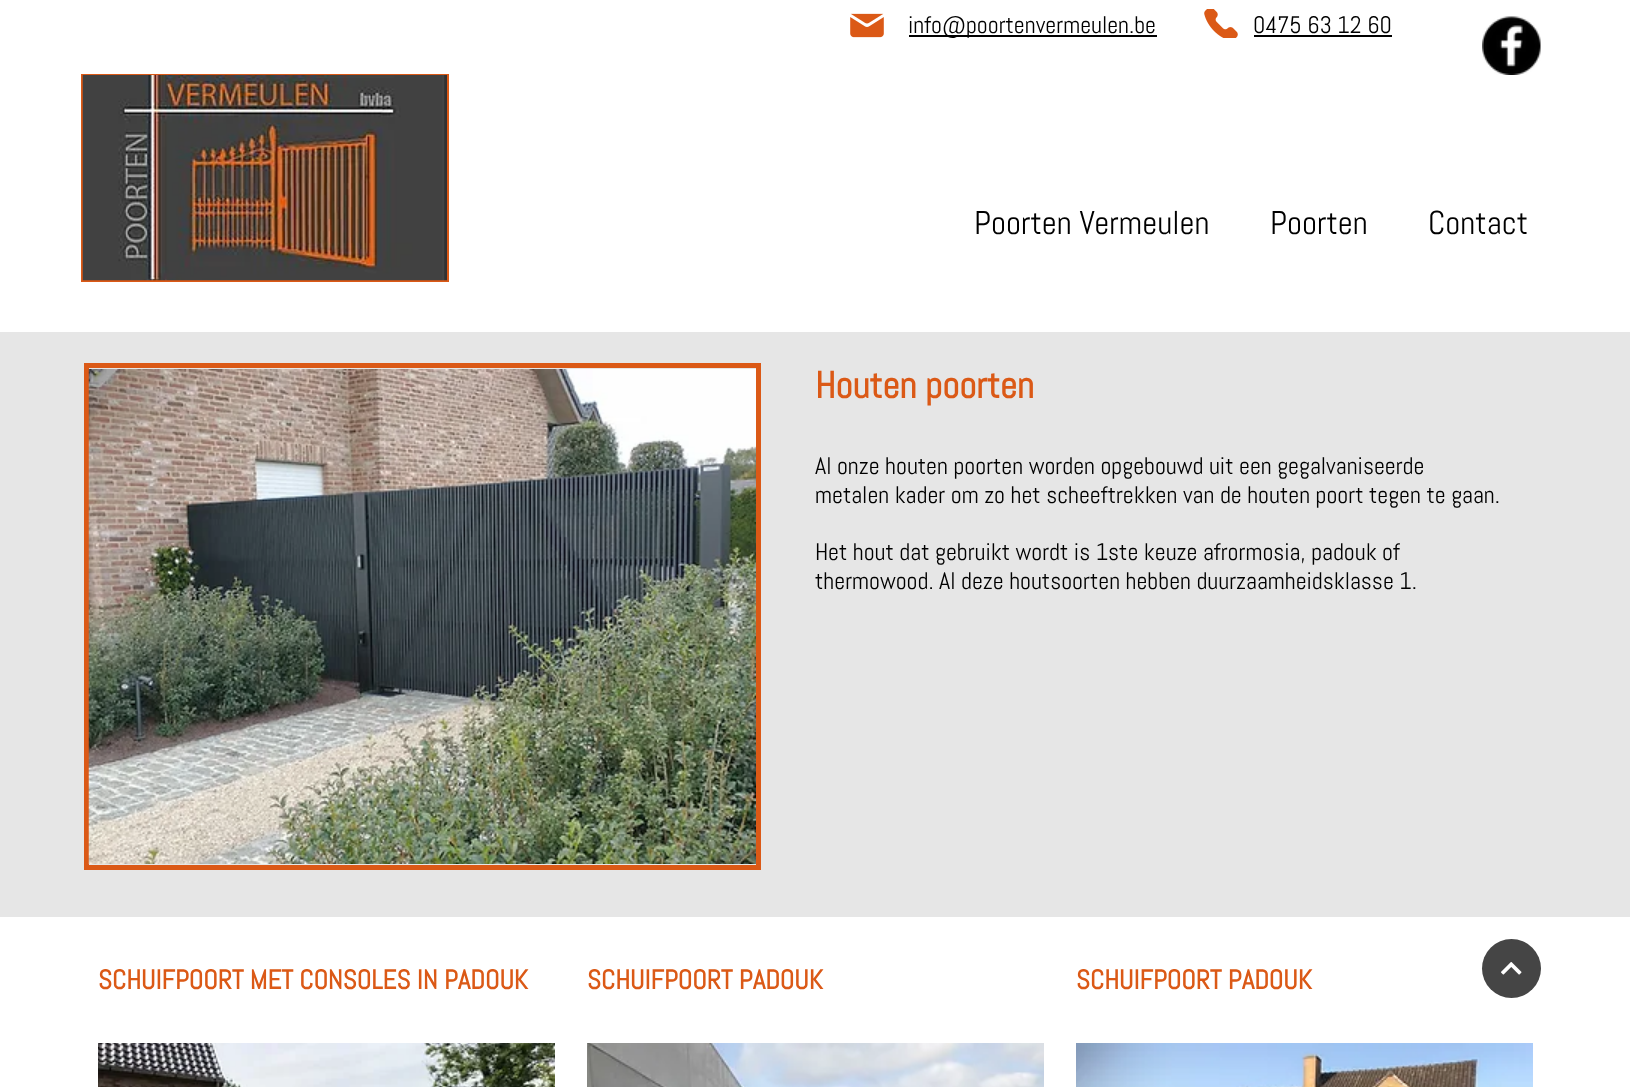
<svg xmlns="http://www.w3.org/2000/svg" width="1630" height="1087">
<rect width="100%" height="100%" fill="#fff"/>
<image x="850" y="13" width="34" height="25" href="media/1.png"/>
<rect x="909" y="35" width="248" height="2" fill="#000"/>
<text x="908" y="33" style="font-family:Abel;font-size:24px;fill:#000">info@poortenvermeulen.be</text>
<image x="1204" y="9" width="34" height="29" href="media/2.png"/>
<text x="1253" y="33" style="font-family:Abel;font-size:24px;fill:#000">0475 63 12 60</text>
<rect x="1254" y="35" width="138" height="2" fill="#000"/>
<rect x="81" y="74" width="368" height="208" fill="#db5916"/>
<image x="82" y="75" width="365" height="206" href="media/3.png"/>
<image x="1482" y="16" width="59" height="59" href="media/4.png"/>
<text x="974" y="234" style="font-family:Abel;font-size:33px;fill:#000">Poorten Vermeulen</text>
<text x="1270" y="234" style="font-family:Abel;font-size:33px;fill:#000">Poorten</text>
<text x="1428" y="234" style="font-family:Abel;font-size:33px;fill:#000">Contact</text>
<rect y="332" width="1630" height="585" fill="#e6e6e6"/>
<rect x="86.5" y="365.5" width="672" height="502" fill="none" stroke="#db5916" stroke-width="5"/>
<image x="88" y="369" width="668" height="495" href="media/5.png"/>
<text x="815" y="398" style="font-family:Abel;font-size:37.5px;font-weight:bold;fill:#db5916">Houten poorten</text>
<text x="815" y="474" style="font-family:Abel;font-size:24px;fill:#000">Al onze houten poorten worden opgebouwd uit een gegalvaniseerde</text>
<text x="815" y="503" style="font-family:Abel;font-size:24px;fill:#000">metalen kader om zo het scheeftrekken van de houten poort tegen te gaan.</text>
<text x="815" y="560" style="font-family:Abel;font-size:24px;fill:#000">Het hout dat gebruikt wordt is 1ste keuze afrormosia, padouk of</text>
<text x="815" y="589" style="font-family:Abel;font-size:24px;fill:#000">thermowood. Al deze houtsoorten hebben duurzaamheidsklasse 1.</text>
<text x="98" y="989" style="font-family:Abel;font-size:27px;font-weight:bold;fill:#db5916">SCHUIFPOORT MET CONSOLES IN PADOUK</text>
<image x="98" y="1043" width="457" height="44" href="media/6.png"/>
<text x="587" y="989" style="font-family:Abel;font-size:27px;font-weight:bold;fill:#db5916">SCHUIFPOORT PADOUK</text>
<image x="587" y="1043" width="457" height="44" href="media/7.png"/>
<text x="1076" y="989" style="font-family:Abel;font-size:27px;font-weight:bold;fill:#db5916">SCHUIFPOORT PADOUK</text>
<image x="1076" y="1043" width="457" height="44" href="media/8.png"/>
<circle cx="1511.5" cy="968.5" r="29.5" fill="#454545"/>
<image x="1501" y="962" width="21" height="13" href="media/9.png"/>
</svg>
